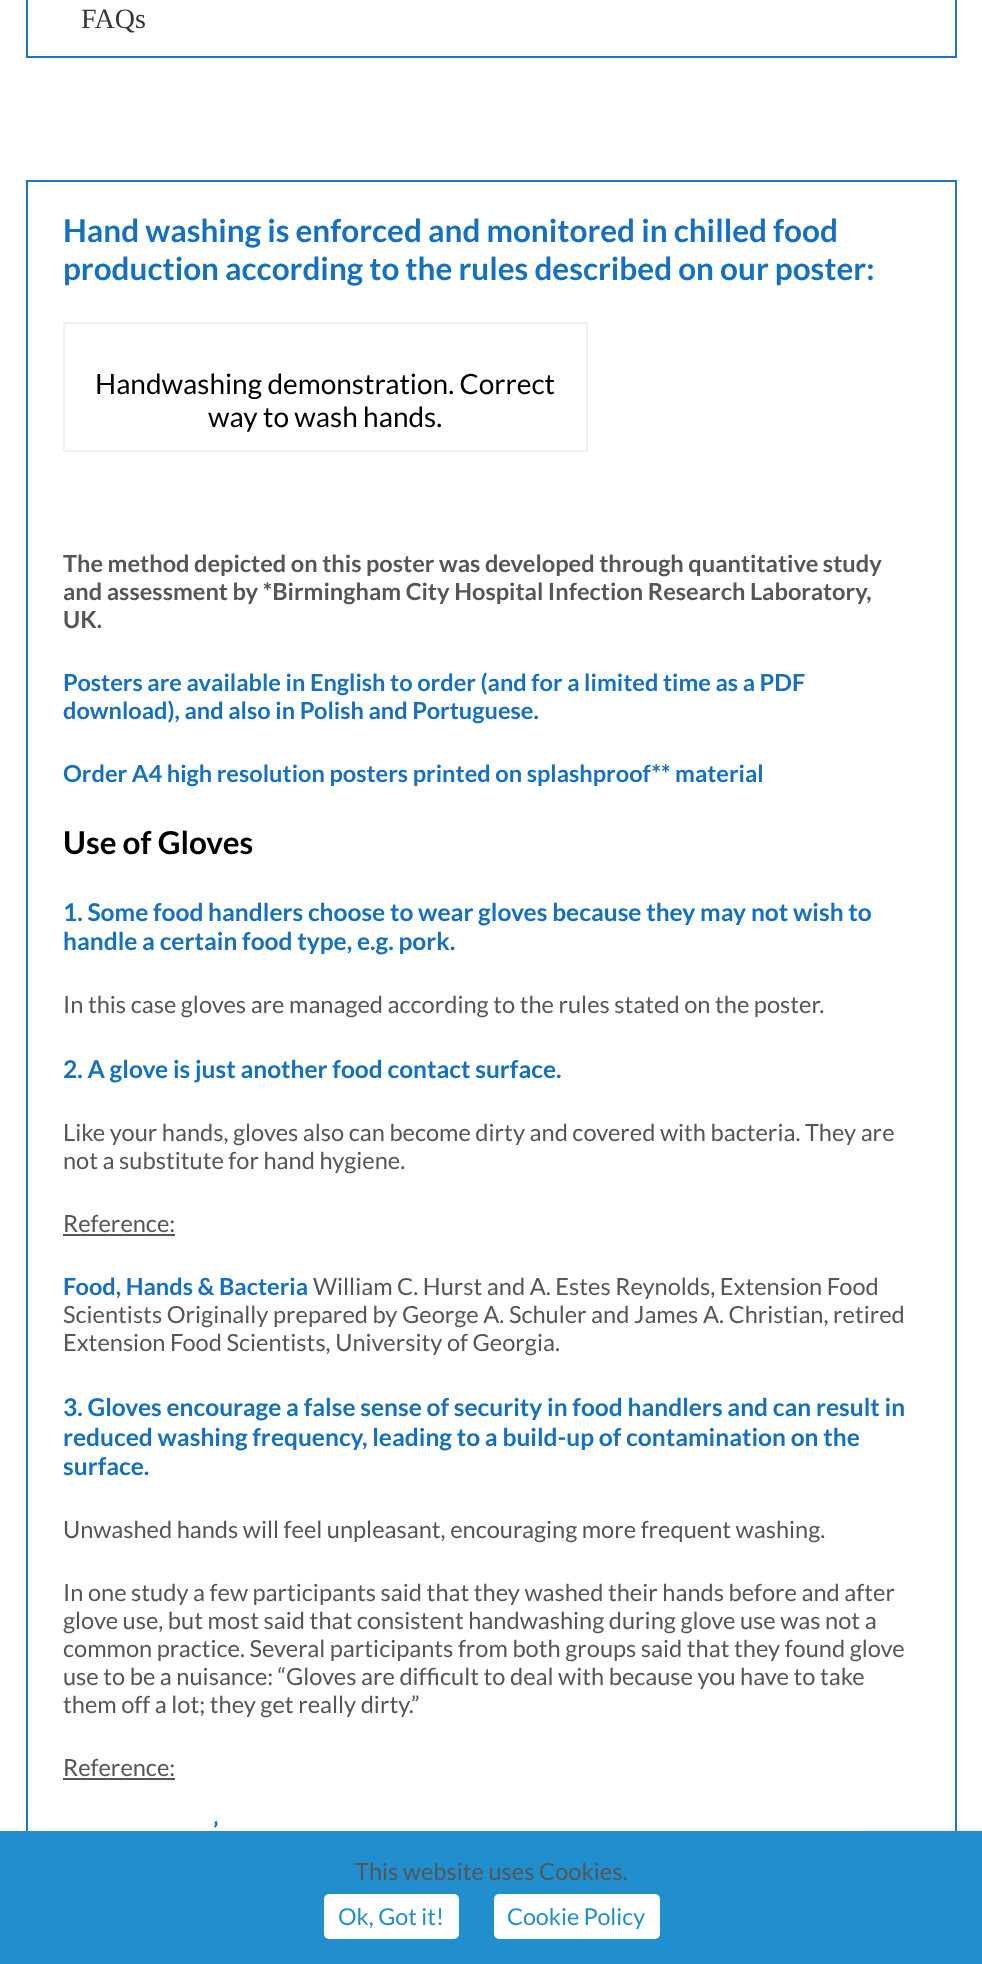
<svg xmlns="http://www.w3.org/2000/svg" width="982" height="1964">
<rect width="100%" height="100%" fill="#fff"/>
<rect x="27" y="-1" width="929" height="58" fill="none" stroke="#1e75c4" stroke-width="2"/>
<text x="81" y="28" style="font-family:Liberation Serif;font-size:28px;fill:#363636">FAQs</text>
<rect x="27" y="181" width="929" height="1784" fill="none" stroke="#1e75c4" stroke-width="2"/>
<text x="63" y="242" style="font-family:Lato;font-size:31.5px;font-weight:bold;fill:#1670c2">Hand washing is enforced and monitored in chilled food</text>
<text x="63" y="280" style="font-family:Lato;font-size:31.5px;font-weight:bold;fill:#1670c2">production according to the rules described on our poster:</text>
<rect x="64" y="323" width="523" height="128" fill="none" stroke="#f0f0f0" stroke-width="2"/>
<text x="95" y="394" style="font-family:Lato;font-size:28px;fill:#000">Handwashing demonstration. Correct</text>
<text x="208" y="427" style="font-family:Lato;font-size:28px;fill:#000">way to wash hands.</text>
<text x="63" y="572" style="font-family:Lato;font-size:23.6px;font-weight:bold;fill:#565655">The method depicted on this poster was developed through quantitative study</text>
<text x="63" y="600" style="font-family:Lato;font-size:23.6px;font-weight:bold;fill:#565655">and assessment by *Birmingham City Hospital Infection Research Laboratory,</text>
<text x="63" y="628" style="font-family:Lato;font-size:23.6px;font-weight:bold;fill:#565655">UK.</text>
<text x="63" y="691" style="font-family:Lato;font-size:23.6px;font-weight:bold;fill:#1670c2">Posters are available in English to order (and for a limited time as a PDF</text>
<text x="63" y="719" style="font-family:Lato;font-size:23.6px;font-weight:bold;fill:#1670c2">download), and also in Polish and Portuguese.</text>
<text x="63" y="782" style="font-family:Lato;font-size:23.6px;font-weight:bold;fill:#1670c2">Order A4 high resolution posters printed on splashproof** material</text>
<text x="63" y="854" style="font-family:Lato;font-size:31.5px;font-weight:bold;fill:#000">Use of Gloves</text>
<text x="63" y="921" style="font-family:Lato;font-size:24.5px;font-weight:bold;fill:#1670c2">1. Some food handlers choose to wear gloves because they may not wish to</text>
<text x="63" y="950" style="font-family:Lato;font-size:24.5px;font-weight:bold;fill:#1670c2">handle a certain food type, e.g. pork.</text>
<text x="63" y="1013" style="font-family:Lato;font-size:23.6px;fill:#565655">In this case gloves are managed according to the rules stated on the poster.</text>
<text x="63" y="1078" style="font-family:Lato;font-size:24.5px;font-weight:bold;fill:#1670c2">2. A glove is just another food contact surface.</text>
<text x="63" y="1141" style="font-family:Lato;font-size:23.6px;fill:#565655">Like your hands, gloves also can become dirty and covered with bacteria. They are</text>
<text x="63" y="1169" style="font-family:Lato;font-size:23.6px;fill:#565655">not a substitute for hand hygiene.</text>
<text x="63" y="1232" style="font-family:Lato;font-size:23.6px;fill:#565655">Reference:</text>
<rect x="63" y="1234" width="112" height="2" fill="#565655"/>
<text x="63" y="1295" style="font-family:Lato;font-size:23.6px;font-weight:bold;fill:#1670c2">Food, Hands &amp; Bacteria</text>
<text x="313" y="1295" style="font-family:Lato;font-size:23.6px;fill:#565655">William C. Hurst and A. Estes Reynolds, Extension Food</text>
<text x="63" y="1323" style="font-family:Lato;font-size:23.6px;fill:#565655">Scientists Originally prepared by George A. Schuler and James A. Christian, retired</text>
<text x="63" y="1351" style="font-family:Lato;font-size:23.6px;fill:#565655">Extension Food Scientists, University of Georgia.</text>
<text x="63" y="1416" style="font-family:Lato;font-size:24.5px;font-weight:bold;fill:#1670c2">3. Gloves encourage a false sense of security in food handlers and can result in</text>
<text x="63" y="1446" style="font-family:Lato;font-size:24.5px;font-weight:bold;fill:#1670c2">reduced washing frequency, leading to a build-up of contamination on the</text>
<text x="63" y="1475" style="font-family:Lato;font-size:24.5px;font-weight:bold;fill:#1670c2">surface.</text>
<text x="63" y="1538" style="font-family:Lato;font-size:23.6px;fill:#565655">Unwashed hands will feel unpleasant, encouraging more frequent washing.</text>
<text x="63" y="1601" style="font-family:Lato;font-size:23.6px;fill:#565655">In one study a few participants said that they washed their hands before and after</text>
<text x="63" y="1629" style="font-family:Lato;font-size:23.6px;fill:#565655">glove use, but most said that consistent handwashing during glove use was not a</text>
<text x="63" y="1657" style="font-family:Lato;font-size:23.6px;fill:#565655">common practice. Several participants from both groups said that they found glove</text>
<text x="63" y="1685" style="font-family:Lato;font-size:23.6px;fill:#565655">use to be a nuisance: “Gloves are difficult to deal with because you have to take</text>
<text x="63" y="1713" style="font-family:Lato;font-size:23.6px;fill:#565655">them off a lot; they get really dirty.”</text>
<text x="63" y="1776" style="font-family:Lato;font-size:23.6px;fill:#565655">Reference:</text>
<rect x="63" y="1778" width="112" height="2" fill="#565655"/>
<text x="213" y="1839" style="font-family:Lato;font-size:23.6px;font-weight:bold;fill:#1670c2">’</text>
<rect x="861" y="1836" width="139" height="105" rx="4" fill="#808080" filter="blur(4.5px)"/>
<rect y="1831" width="982" height="133" fill="#218ece"/>
<text x="355" y="1880" style="font-family:Lato;font-size:23.6px;fill:#565655">This website uses Cookies.</text>
<rect x="324" y="1894" width="135" height="45" rx="5" fill="#fff"/>
<text x="338" y="1925" style="font-family:Lato;font-size:23.25px;fill:#218ece">Ok, Got it!</text>
<rect x="494" y="1894" width="166" height="45" rx="5" fill="#fff"/>
<text x="507" y="1925" style="font-family:Lato;font-size:23.25px;fill:#218ece">Cookie Policy</text>
</svg>
